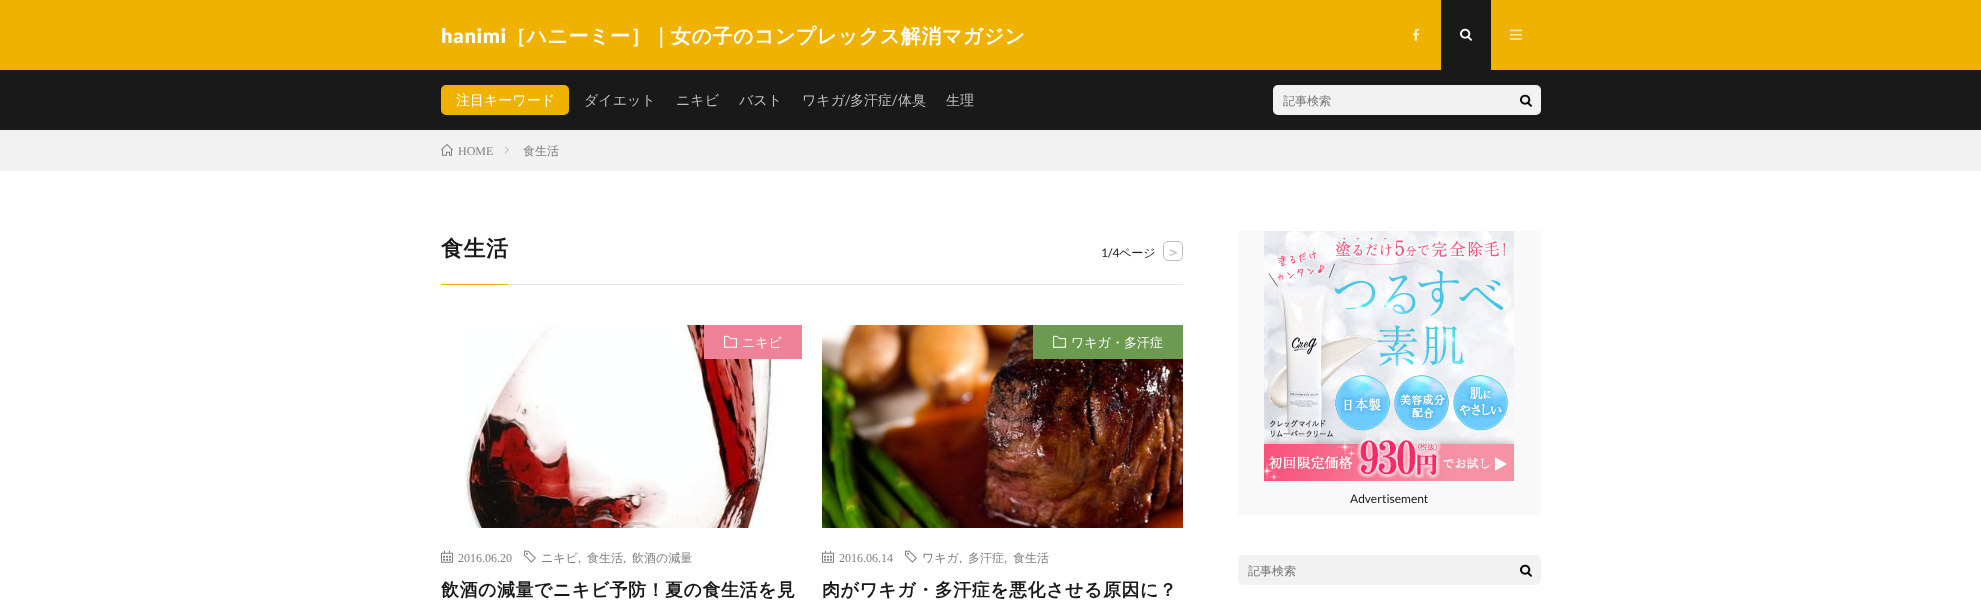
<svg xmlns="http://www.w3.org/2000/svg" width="1981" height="600">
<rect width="100%" height="100%" fill="#fff"/>
<rect width="1981" height="70" fill="#f0b200"/>
<text x="441" y="43" style="font-family:Lato;font-size:20px;font-weight:900;letter-spacing:0.5px;fill:#fff">hanimi</text>
<text x="506" y="43" style="font-family:WenQuanYi Zen Hei;font-size:20px;font-weight:bold;letter-spacing:0.5px;fill:#fff">［ハニーミー］｜女の子のコンプレックス解消マガジン</text>
<image x="1412" y="28" width="8" height="13" href="media/1.png"/>
<rect x="1441" width="50" height="70" fill="#191919"/>
<image x="1460" y="28" width="12" height="13" href="media/2.png"/>
<image x="1510" y="29" width="12" height="11" href="media/3.png"/>
<rect y="70" width="1981" height="60" fill="#191919"/>
<rect x="441" y="85" width="128" height="30" rx="5" fill="#f0b200"/>
<text x="456" y="105" style="font-family:WenQuanYi Zen Hei;font-size:14px;font-weight:500;fill:#fff">注目キーワード</text>
<text x="584" y="105" style="font-family:WenQuanYi Zen Hei;font-size:14px;font-weight:500;fill:#bfbfbf">ダイエット</text>
<text x="676" y="105" style="font-family:WenQuanYi Zen Hei;font-size:14px;font-weight:500;fill:#bfbfbf">ニキビ</text>
<text x="739" y="105" style="font-family:WenQuanYi Zen Hei;font-size:14px;font-weight:500;fill:#bfbfbf">バスト</text>
<text x="802" y="105" style="font-family:WenQuanYi Zen Hei;font-size:14px;font-weight:500;fill:#bfbfbf">ワキガ</text>
<text x="845" y="105" style="font-family:Lato;font-size:14px;fill:#bfbfbf">/</text>
<text x="850" y="105" style="font-family:WenQuanYi Zen Hei;font-size:14px;font-weight:500;fill:#bfbfbf">多汗症</text>
<text x="892" y="105" style="font-family:Lato;font-size:14px;fill:#bfbfbf">/</text>
<text x="898" y="105" style="font-family:WenQuanYi Zen Hei;font-size:14px;font-weight:500;fill:#bfbfbf">体臭</text>
<text x="946" y="105" style="font-family:WenQuanYi Zen Hei;font-size:14px;font-weight:500;fill:#bfbfbf">生理</text>
<rect x="1273" y="85" width="268" height="30" rx="5" fill="#f2f2f2"/>
<text x="1283" y="105" style="font-family:WenQuanYi Zen Hei;font-size:12px;font-weight:500;fill:#757575">記事検索</text>
<image x="1520" y="94" width="12" height="13" href="media/4.png"/>
<rect y="130" width="1981" height="41" fill="#f2f2f2"/>
<image x="441" y="144" width="12" height="12" href="media/5.png"/>
<text x="458" y="155" style="font-family:Liberation Serif;font-size:12px;fill:#7f7f7f">HOME</text>
<path d="M505.5 146.5l3.5 3.5l-1 .5l-3.5-3.5z" fill="#bfbfbf"/>
<path d="M508 149.5l1 .5l-3.5 3.5l-1-.5z" fill="#bfbfbf"/>
<text x="523" y="155" style="font-family:WenQuanYi Zen Hei;font-size:12px;font-weight:500;fill:#7f7f7f">食生活</text>
<rect x="441" y="284" width="67" height="1" fill="#f0b200"/>
<text x="441" y="256" style="font-family:WenQuanYi Zen Hei;font-size:22px;font-weight:bold;letter-spacing:0.5px;fill:#191919">食生活</text>
<text x="1101" y="257" style="font-family:Lato;font-size:12px;fill:#191919">1/4</text>
<text x="1119" y="257" style="font-family:WenQuanYi Zen Hei;font-size:12px;font-weight:500;fill:#191919">ページ</text>
<rect x="1163.5" y="241.5" width="19" height="19" rx="4.5" fill="none" stroke="#bfbfbf"/>
<text x="1169" y="257" style="font-family:DejaVu Sans Mono;font-size:14px;fill:#bfbfbf">&gt;</text>
<rect x="508" y="284" width="675" height="1" fill="#e5e5e5"/>
<image x="464" y="325" width="314" height="203" href="media/6.png"/>
<rect x="704" y="325" width="98" height="34" fill="#ee8299"/>
<image x="724" y="335" width="13" height="13" href="media/7.png"/>
<text x="742" y="347" style="font-family:WenQuanYi Zen Hei;font-size:13px;font-weight:500;fill:#fff">ニキビ</text>
<image x="441" y="550" width="12" height="13" href="media/8.png"/>
<text x="458" y="562" style="font-family:Liberation Serif;font-size:12px;fill:#7f7f7f">2016.06.20</text>
<image x="524" y="550" width="12" height="13" href="media/9.png"/>
<text x="541" y="562" style="font-family:WenQuanYi Zen Hei;font-size:12px;font-weight:500;fill:#7f7f7f">ニキビ</text>
<text x="578" y="562" style="font-family:Liberation Serif;font-size:12px;fill:#7f7f7f">,</text>
<text x="587" y="562" style="font-family:WenQuanYi Zen Hei;font-size:12px;font-weight:500;fill:#7f7f7f">食生活</text>
<text x="623" y="562" style="font-family:Liberation Serif;font-size:12px;fill:#7f7f7f">,</text>
<text x="632" y="562" style="font-family:WenQuanYi Zen Hei;font-size:12px;font-weight:500;fill:#7f7f7f">飲酒の減量</text>
<text x="441" y="596" style="font-family:WenQuanYi Zen Hei;font-size:18px;font-weight:bold;letter-spacing:0.5px;fill:#191919">飲酒の減量でニキビ予防！夏の食生活を見</text>
<image x="822" y="325" width="361" height="203" href="media/10.png"/>
<rect x="1033" y="325" width="150" height="34" fill="#6c9a51"/>
<image x="1053" y="335" width="13" height="13" href="media/11.png"/>
<text x="1071" y="347" style="font-family:WenQuanYi Zen Hei;font-size:13px;font-weight:500;fill:#fff">ワキガ・多汗症</text>
<image x="822" y="550" width="12" height="13" href="media/8.png"/>
<text x="839" y="562" style="font-family:Liberation Serif;font-size:12px;fill:#7f7f7f">2016.06.14</text>
<image x="905" y="550" width="12" height="13" href="media/9.png"/>
<text x="922" y="562" style="font-family:WenQuanYi Zen Hei;font-size:12px;font-weight:500;fill:#7f7f7f">ワキガ</text>
<text x="959" y="562" style="font-family:Liberation Serif;font-size:12px;fill:#7f7f7f">,</text>
<text x="968" y="562" style="font-family:WenQuanYi Zen Hei;font-size:12px;font-weight:500;fill:#7f7f7f">多汗症</text>
<text x="1004" y="562" style="font-family:Liberation Serif;font-size:12px;fill:#7f7f7f">,</text>
<text x="1013" y="562" style="font-family:WenQuanYi Zen Hei;font-size:12px;font-weight:500;fill:#7f7f7f">食生活</text>
<text x="822" y="596" style="font-family:WenQuanYi Zen Hei;font-size:18px;font-weight:bold;letter-spacing:0.5px;fill:#191919">肉がワキガ・多汗症を悪化させる原因に？</text>
<rect x="1238" y="231" width="303" height="284" fill="#f9f9f9"/>
<image x="1264" y="231" width="250" height="250" href="media/12.png"/>
<text x="1350" y="503" style="font-family:Lato;font-size:12px;fill:#191919">Advertisement</text>
<rect x="1238" y="555" width="303" height="30" rx="5" fill="#f2f2f2"/>
<text x="1248" y="575" style="font-family:WenQuanYi Zen Hei;font-size:12px;font-weight:500;fill:#757575">記事検索</text>
<image x="1520" y="564" width="12" height="13" href="media/4.png"/>
</svg>
